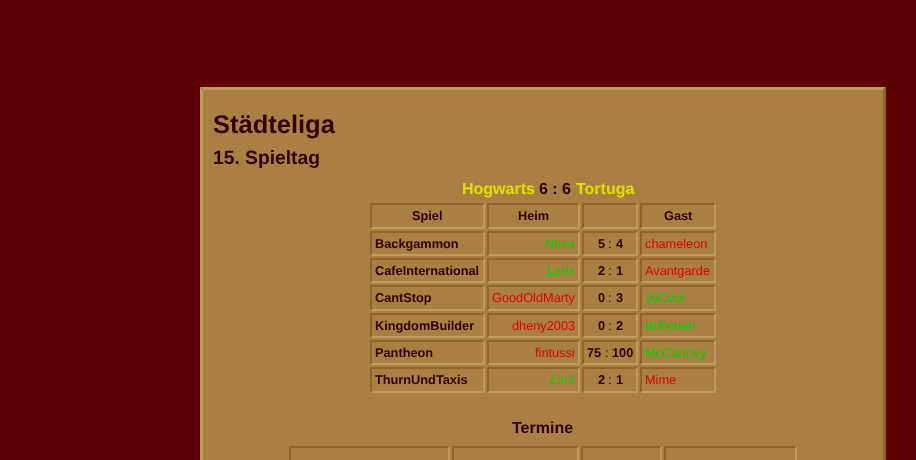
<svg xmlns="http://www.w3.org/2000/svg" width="916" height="460">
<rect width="100%" height="100%" fill="#5c0003"/>
<path d="M200 87h686l-3 3h-680z" fill="#c29a5d"/>
<path d="M886 87v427l-3-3v-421z" fill="#8f6628"/>
<path d="M200 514v-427l3 3v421z" fill="#c29a5d"/>
<rect x="203" y="90" width="680" height="370" fill="#a98041"/>
<text x="213" y="133" style="font-family:Liberation Sans;font-size:25.5px;font-weight:bold;fill:#2e0000">Städteliga</text>
<text x="213" y="164" style="font-family:Liberation Sans;font-size:19.25px;font-weight:bold;fill:#2e0000">15. Spieltag</text>
<text x="462" y="194" style="font-family:Liberation Sans;font-size:16px;font-weight:bold;fill:#e0e000">Hogwarts</text>
<text x="539" y="194" style="font-family:Liberation Sans;font-size:16px;font-weight:bold;fill:#2e0000">6 : 6</text>
<text x="576" y="194" style="font-family:Liberation Sans;font-size:16px;font-weight:bold;fill:#e0e000">Tortuga</text>
<path d="M370 203h115l-2 2h-111z" fill="#8f6628"/>
<path d="M485 203v26l-2-2v-22z" fill="#c29a5d"/>
<path d="M485 229h-115l2-2h111z" fill="#c29a5d"/>
<path d="M370 229v-26l2 2v22z" fill="#8f6628"/>
<text x="412" y="220" style="font-family:Liberation Sans;font-size:12.75px;font-weight:bold;fill:#2e0000">Spiel</text>
<path d="M487 203h93l-2 2h-89z" fill="#8f6628"/>
<path d="M580 203v26l-2-2v-22z" fill="#c29a5d"/>
<path d="M580 229h-93l2-2h89z" fill="#c29a5d"/>
<path d="M487 229v-26l2 2v22z" fill="#8f6628"/>
<text x="518" y="220" style="font-family:Liberation Sans;font-size:12.75px;font-weight:bold;fill:#2e0000">Heim</text>
<path d="M582 203h56l-2 2h-52z" fill="#8f6628"/>
<path d="M638 203v26l-2-2v-22z" fill="#c29a5d"/>
<path d="M638 229h-56l2-2h52z" fill="#c29a5d"/>
<path d="M582 229v-26l2 2v22z" fill="#8f6628"/>
<path d="M640 203h76l-2 2h-72z" fill="#8f6628"/>
<path d="M716 203v26l-2-2v-22z" fill="#c29a5d"/>
<path d="M716 229h-76l2-2h72z" fill="#c29a5d"/>
<path d="M640 229v-26l2 2v22z" fill="#8f6628"/>
<text x="664" y="220" style="font-family:Liberation Sans;font-size:12.75px;font-weight:bold;fill:#2e0000">Gast</text>
<path d="M370 231h115l-2 2h-111z" fill="#8f6628"/>
<path d="M485 231v25l-2-2v-21z" fill="#c29a5d"/>
<path d="M485 256h-115l2-2h111z" fill="#c29a5d"/>
<path d="M370 256v-25l2 2v21z" fill="#8f6628"/>
<text x="375" y="248" style="font-family:Liberation Sans;font-size:12.75px;font-weight:bold;fill:#2e0000">Backgammon</text>
<path d="M487 231h93l-2 2h-89z" fill="#8f6628"/>
<path d="M580 231v25l-2-2v-21z" fill="#c29a5d"/>
<path d="M580 256h-93l2-2h89z" fill="#c29a5d"/>
<path d="M487 256v-25l2 2v21z" fill="#8f6628"/>
<text x="545" y="248" style="font-family:Liberation Sans;font-size:12.75px;fill:#00d000">Ntola</text>
<path d="M582 231h56l-2 2h-52z" fill="#8f6628"/>
<path d="M638 231v25l-2-2v-21z" fill="#c29a5d"/>
<path d="M638 256h-56l2-2h52z" fill="#c29a5d"/>
<path d="M582 256v-25l2 2v21z" fill="#8f6628"/>
<text x="598" y="248" style="font-family:Liberation Sans;font-size:12.75px;font-weight:bold;fill:#2e0000">5</text>
<text x="608" y="248" style="font-family:Liberation Sans;font-size:12.75px;fill:#2e0000">:</text>
<text x="616" y="248" style="font-family:Liberation Sans;font-size:12.75px;font-weight:bold;fill:#2e0000">4</text>
<path d="M640 231h76l-2 2h-72z" fill="#8f6628"/>
<path d="M716 231v25l-2-2v-21z" fill="#c29a5d"/>
<path d="M716 256h-76l2-2h72z" fill="#c29a5d"/>
<path d="M640 256v-25l2 2v21z" fill="#8f6628"/>
<text x="645" y="248" style="font-family:Liberation Sans;font-size:12.75px;fill:#e00000">chameleon</text>
<path d="M370 258h115l-2 2h-111z" fill="#8f6628"/>
<path d="M485 258v25l-2-2v-21z" fill="#c29a5d"/>
<path d="M485 283h-115l2-2h111z" fill="#c29a5d"/>
<path d="M370 283v-25l2 2v21z" fill="#8f6628"/>
<text x="375" y="275" style="font-family:Liberation Sans;font-size:12.75px;font-weight:bold;fill:#2e0000">CafeInternational</text>
<path d="M487 258h93l-2 2h-89z" fill="#8f6628"/>
<path d="M580 258v25l-2-2v-21z" fill="#c29a5d"/>
<path d="M580 283h-93l2-2h89z" fill="#c29a5d"/>
<path d="M487 283v-25l2 2v21z" fill="#8f6628"/>
<text x="547" y="275" style="font-family:Liberation Sans;font-size:12.75px;fill:#00d000">Larix</text>
<path d="M582 258h56l-2 2h-52z" fill="#8f6628"/>
<path d="M638 258v25l-2-2v-21z" fill="#c29a5d"/>
<path d="M638 283h-56l2-2h52z" fill="#c29a5d"/>
<path d="M582 283v-25l2 2v21z" fill="#8f6628"/>
<text x="598" y="275" style="font-family:Liberation Sans;font-size:12.75px;font-weight:bold;fill:#2e0000">2</text>
<text x="608" y="275" style="font-family:Liberation Sans;font-size:12.75px;fill:#2e0000">:</text>
<text x="616" y="275" style="font-family:Liberation Sans;font-size:12.75px;font-weight:bold;fill:#2e0000">1</text>
<path d="M640 258h76l-2 2h-72z" fill="#8f6628"/>
<path d="M716 258v25l-2-2v-21z" fill="#c29a5d"/>
<path d="M716 283h-76l2-2h72z" fill="#c29a5d"/>
<path d="M640 283v-25l2 2v21z" fill="#8f6628"/>
<text x="645" y="275" style="font-family:Liberation Sans;font-size:12.75px;fill:#e00000">Avantgarde</text>
<path d="M370 285h115l-2 2h-111z" fill="#8f6628"/>
<path d="M485 285v26l-2-2v-22z" fill="#c29a5d"/>
<path d="M485 311h-115l2-2h111z" fill="#c29a5d"/>
<path d="M370 311v-26l2 2v22z" fill="#8f6628"/>
<text x="375" y="302" style="font-family:Liberation Sans;font-size:12.75px;font-weight:bold;fill:#2e0000">CantStop</text>
<path d="M487 285h93l-2 2h-89z" fill="#8f6628"/>
<path d="M580 285v26l-2-2v-22z" fill="#c29a5d"/>
<path d="M580 311h-93l2-2h89z" fill="#c29a5d"/>
<path d="M487 311v-26l2 2v22z" fill="#8f6628"/>
<text x="492" y="302" style="font-family:Liberation Sans;font-size:12.75px;fill:#e00000">GoodOldMarty</text>
<path d="M582 285h56l-2 2h-52z" fill="#8f6628"/>
<path d="M638 285v26l-2-2v-22z" fill="#c29a5d"/>
<path d="M638 311h-56l2-2h52z" fill="#c29a5d"/>
<path d="M582 311v-26l2 2v22z" fill="#8f6628"/>
<text x="598" y="302" style="font-family:Liberation Sans;font-size:12.75px;font-weight:bold;fill:#2e0000">0</text>
<text x="608" y="302" style="font-family:Liberation Sans;font-size:12.75px;fill:#2e0000">:</text>
<text x="616" y="302" style="font-family:Liberation Sans;font-size:12.75px;font-weight:bold;fill:#2e0000">3</text>
<path d="M640 285h76l-2 2h-72z" fill="#8f6628"/>
<path d="M716 285v26l-2-2v-22z" fill="#c29a5d"/>
<path d="M716 311h-76l2-2h72z" fill="#c29a5d"/>
<path d="M640 311v-26l2 2v22z" fill="#8f6628"/>
<text x="645" y="302" style="font-family:Liberation Sans;font-size:12.75px;fill:#00d000">JoCool</text>
<path d="M370 313h115l-2 2h-111z" fill="#8f6628"/>
<path d="M485 313v25l-2-2v-21z" fill="#c29a5d"/>
<path d="M485 338h-115l2-2h111z" fill="#c29a5d"/>
<path d="M370 338v-25l2 2v21z" fill="#8f6628"/>
<text x="375" y="330" style="font-family:Liberation Sans;font-size:12.75px;font-weight:bold;fill:#2e0000">KingdomBuilder</text>
<path d="M487 313h93l-2 2h-89z" fill="#8f6628"/>
<path d="M580 313v25l-2-2v-21z" fill="#c29a5d"/>
<path d="M580 338h-93l2-2h89z" fill="#c29a5d"/>
<path d="M487 338v-25l2 2v21z" fill="#8f6628"/>
<text x="512" y="330" style="font-family:Liberation Sans;font-size:12.75px;fill:#e00000">dheny2003</text>
<path d="M582 313h56l-2 2h-52z" fill="#8f6628"/>
<path d="M638 313v25l-2-2v-21z" fill="#c29a5d"/>
<path d="M638 338h-56l2-2h52z" fill="#c29a5d"/>
<path d="M582 338v-25l2 2v21z" fill="#8f6628"/>
<text x="598" y="330" style="font-family:Liberation Sans;font-size:12.75px;font-weight:bold;fill:#2e0000">0</text>
<text x="608" y="330" style="font-family:Liberation Sans;font-size:12.75px;fill:#2e0000">:</text>
<text x="616" y="330" style="font-family:Liberation Sans;font-size:12.75px;font-weight:bold;fill:#2e0000">2</text>
<path d="M640 313h76l-2 2h-72z" fill="#8f6628"/>
<path d="M716 313v25l-2-2v-21z" fill="#c29a5d"/>
<path d="M716 338h-76l2-2h72z" fill="#c29a5d"/>
<path d="M640 338v-25l2 2v21z" fill="#8f6628"/>
<text x="645" y="330" style="font-family:Liberation Sans;font-size:12.75px;fill:#00d000">Bübchen</text>
<path d="M370 340h115l-2 2h-111z" fill="#8f6628"/>
<path d="M485 340v25l-2-2v-21z" fill="#c29a5d"/>
<path d="M485 365h-115l2-2h111z" fill="#c29a5d"/>
<path d="M370 365v-25l2 2v21z" fill="#8f6628"/>
<text x="375" y="357" style="font-family:Liberation Sans;font-size:12.75px;font-weight:bold;fill:#2e0000">Pantheon</text>
<path d="M487 340h93l-2 2h-89z" fill="#8f6628"/>
<path d="M580 340v25l-2-2v-21z" fill="#c29a5d"/>
<path d="M580 365h-93l2-2h89z" fill="#c29a5d"/>
<path d="M487 365v-25l2 2v21z" fill="#8f6628"/>
<text x="535" y="357" style="font-family:Liberation Sans;font-size:12.75px;fill:#e00000">fintussi</text>
<path d="M582 340h56l-2 2h-52z" fill="#8f6628"/>
<path d="M638 340v25l-2-2v-21z" fill="#c29a5d"/>
<path d="M638 365h-56l2-2h52z" fill="#c29a5d"/>
<path d="M582 365v-25l2 2v21z" fill="#8f6628"/>
<text x="587" y="357" style="font-family:Liberation Sans;font-size:12.75px;font-weight:bold;fill:#2e0000">75</text>
<text x="605" y="357" style="font-family:Liberation Sans;font-size:12.75px;fill:#2e0000">:</text>
<text x="612" y="357" style="font-family:Liberation Sans;font-size:12.75px;font-weight:bold;fill:#2e0000">100</text>
<path d="M640 340h76l-2 2h-72z" fill="#8f6628"/>
<path d="M716 340v25l-2-2v-21z" fill="#c29a5d"/>
<path d="M716 365h-76l2-2h72z" fill="#c29a5d"/>
<path d="M640 365v-25l2 2v21z" fill="#8f6628"/>
<text x="645" y="357" style="font-family:Liberation Sans;font-size:12.75px;fill:#00d000">McCartney</text>
<path d="M370 367h115l-2 2h-111z" fill="#8f6628"/>
<path d="M485 367v26l-2-2v-22z" fill="#c29a5d"/>
<path d="M485 393h-115l2-2h111z" fill="#c29a5d"/>
<path d="M370 393v-26l2 2v22z" fill="#8f6628"/>
<text x="375" y="384" style="font-family:Liberation Sans;font-size:12.75px;font-weight:bold;fill:#2e0000">ThurnUndTaxis</text>
<path d="M487 367h93l-2 2h-89z" fill="#8f6628"/>
<path d="M580 367v26l-2-2v-22z" fill="#c29a5d"/>
<path d="M580 393h-93l2-2h89z" fill="#c29a5d"/>
<path d="M487 393v-26l2 2v22z" fill="#8f6628"/>
<text x="549" y="384" style="font-family:Liberation Sans;font-size:12.75px;fill:#00d000">Zar2</text>
<path d="M582 367h56l-2 2h-52z" fill="#8f6628"/>
<path d="M638 367v26l-2-2v-22z" fill="#c29a5d"/>
<path d="M638 393h-56l2-2h52z" fill="#c29a5d"/>
<path d="M582 393v-26l2 2v22z" fill="#8f6628"/>
<text x="598" y="384" style="font-family:Liberation Sans;font-size:12.75px;font-weight:bold;fill:#2e0000">2</text>
<text x="608" y="384" style="font-family:Liberation Sans;font-size:12.75px;fill:#2e0000">:</text>
<text x="616" y="384" style="font-family:Liberation Sans;font-size:12.75px;font-weight:bold;fill:#2e0000">1</text>
<path d="M640 367h76l-2 2h-72z" fill="#8f6628"/>
<path d="M716 367v26l-2-2v-22z" fill="#c29a5d"/>
<path d="M716 393h-76l2-2h72z" fill="#c29a5d"/>
<path d="M640 393v-26l2 2v22z" fill="#8f6628"/>
<text x="645" y="384" style="font-family:Liberation Sans;font-size:12.75px;fill:#e00000">Mime</text>
<text x="512" y="433" style="font-family:Liberation Sans;font-size:16px;font-weight:bold;fill:#2e0000">Termine</text>
<path d="M289 446h161l-2 2h-157z" fill="#8f6628"/>
<path d="M450 446v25l-2-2v-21z" fill="#c29a5d"/>
<path d="M289 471v-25l2 2v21z" fill="#8f6628"/>
<path d="M452 446h127l-2 2h-123z" fill="#8f6628"/>
<path d="M579 446v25l-2-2v-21z" fill="#c29a5d"/>
<path d="M452 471v-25l2 2v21z" fill="#8f6628"/>
<path d="M581 446h81l-2 2h-77z" fill="#8f6628"/>
<path d="M662 446v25l-2-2v-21z" fill="#c29a5d"/>
<path d="M581 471v-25l2 2v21z" fill="#8f6628"/>
<path d="M664 446h133l-2 2h-129z" fill="#8f6628"/>
<path d="M797 446v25l-2-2v-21z" fill="#c29a5d"/>
<path d="M664 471v-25l2 2v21z" fill="#8f6628"/>
</svg>
